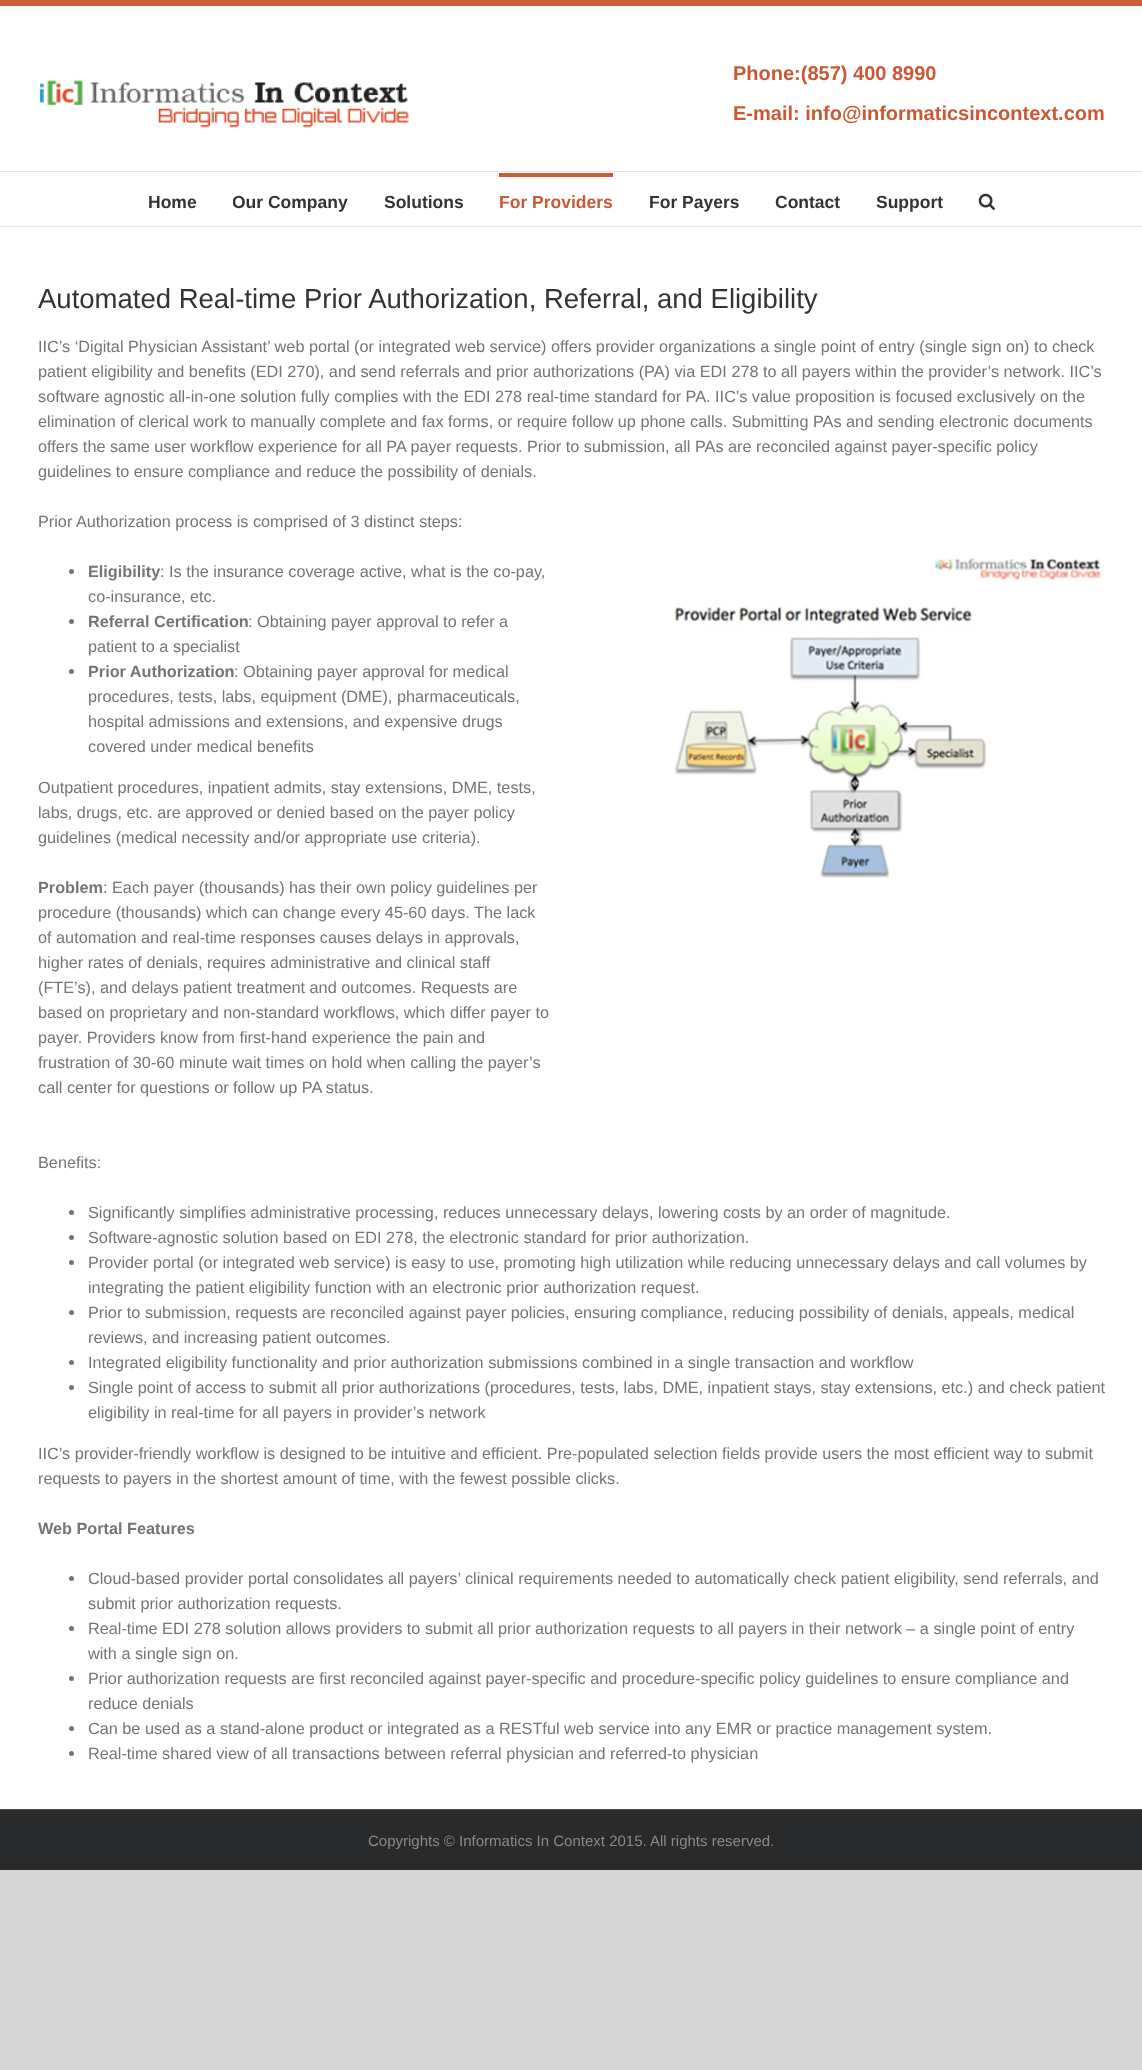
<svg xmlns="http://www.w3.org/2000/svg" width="1142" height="2070">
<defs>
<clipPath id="clip1"><rect x="233" y="173" width="146" height="53"/></clipPath>
</defs>
<rect width="100%" height="100%" fill="#d7d6d6"/>
<rect y="6" width="1142" height="1803" fill="#fff"/>
<rect width="1142" height="6" fill="#cd5c37"/>
<rect y="171" width="1142" height="1" fill="#e5e5e5"/>
<image x="39" y="80" width="370" height="48" href="media/1.png"/>
<text x="733" y="80" style="font-family:Liberation Sans;font-size:20px;font-weight:bold;fill:#cb5835">Phone:(857) 400 8990</text>
<text x="733" y="120" style="font-family:Liberation Sans;font-size:20px;font-weight:bold;fill:#cb5835">E-mail: info@informaticsincontext.com</text>
<rect y="226" width="1142" height="1" fill="#e5e5e5"/>
<text x="148" y="208" style="font-family:Liberation Sans;font-size:17.5px;font-weight:bold;fill:#333">Home</text>
<g clip-path="url(#clip1)">
<text x="232" y="208" style="font-family:Liberation Sans;font-size:17.5px;font-weight:bold;fill:#333">Our Company</text>
</g>
<text x="384" y="208" style="font-family:Liberation Sans;font-size:17.5px;font-weight:bold;fill:#333">Solutions</text>
<rect x="499" y="173" width="114" height="4" fill="#cd5c37"/>
<text x="499" y="208" style="font-family:Liberation Sans;font-size:17.5px;font-weight:bold;fill:#cb5835">For Providers</text>
<text x="649" y="208" style="font-family:Liberation Sans;font-size:17.5px;font-weight:bold;fill:#333">For Payers</text>
<text x="775" y="208" style="font-family:Liberation Sans;font-size:17.5px;font-weight:bold;fill:#333">Contact</text>
<text x="876" y="208" style="font-family:Liberation Sans;font-size:17.5px;font-weight:bold;fill:#333">Support</text>
<image x="978" y="193" width="17" height="17" href="media/2.png"/>
<text x="38" y="308" style="font-family:Liberation Sans;font-size:27.5px;fill:#333">Automated Real-time Prior Authorization, Referral, and Eligibility</text>
<text x="38" y="352" style="font-family:Liberation Sans;font-size:16.25px;fill:#747474">IIC’s ‘Digital Physician Assistant’ web portal (or integrated web service) offers provider organizations a single point of entry (single sign on) to check</text>
<text x="38" y="377" style="font-family:Liberation Sans;font-size:16.25px;fill:#747474">patient eligibility and benefits (EDI 270), and send referrals and prior authorizations (PA) via EDI 278 to all payers within the provider’s network. IIC’s</text>
<text x="38" y="402" style="font-family:Liberation Sans;font-size:16.25px;fill:#747474">software agnostic all-in-one solution fully complies with the EDI 278 real-time standard for PA. IIC’s value proposition is focused exclusively on the</text>
<text x="38" y="427" style="font-family:Liberation Sans;font-size:16.25px;fill:#747474">elimination of clerical work to manually complete and fax forms, or require follow up phone calls. Submitting PAs and sending electronic documents</text>
<text x="38" y="452" style="font-family:Liberation Sans;font-size:16.25px;fill:#747474">offers the same user workflow experience for all PA payer requests. Prior to submission, all PAs are reconciled against payer-specific policy</text>
<text x="38" y="477" style="font-family:Liberation Sans;font-size:16.25px;fill:#747474">guidelines to ensure compliance and reduce the possibility of denials.</text>
<text x="38" y="527" style="font-family:Liberation Sans;font-size:16.25px;fill:#747474">Prior Authorization process is comprised of 3 distinct steps:</text>
<circle cx="71.5" cy="571.5" r="2.5" fill="#747474"/>
<text x="88" y="577" style="font-family:Liberation Sans;font-size:16.25px;font-weight:bold;fill:#747474">Eligibility</text>
<text x="160" y="577" style="font-family:Liberation Sans;font-size:16.25px;fill:#747474">: Is the insurance coverage active, what is the co-pay,</text>
<text x="88" y="602" style="font-family:Liberation Sans;font-size:16.25px;fill:#747474">co-insurance, etc.</text>
<circle cx="71.5" cy="621.5" r="2.5" fill="#747474"/>
<text x="88" y="627" style="font-family:Liberation Sans;font-size:16.25px;font-weight:bold;fill:#747474">Referral Certification</text>
<text x="248" y="627" style="font-family:Liberation Sans;font-size:16.25px;fill:#747474">: Obtaining payer approval to refer a</text>
<text x="88" y="652" style="font-family:Liberation Sans;font-size:16.25px;fill:#747474">patient to a specialist</text>
<circle cx="71.5" cy="671.5" r="2.5" fill="#747474"/>
<text x="88" y="677" style="font-family:Liberation Sans;font-size:16.25px;font-weight:bold;fill:#747474">Prior Authorization</text>
<text x="234" y="677" style="font-family:Liberation Sans;font-size:16.25px;fill:#747474">: Obtaining payer approval for medical</text>
<text x="88" y="702" style="font-family:Liberation Sans;font-size:16.25px;fill:#747474">procedures, tests, labs, equipment (DME), pharmaceuticals,</text>
<text x="88" y="727" style="font-family:Liberation Sans;font-size:16.25px;fill:#747474">hospital admissions and extensions, and expensive drugs</text>
<text x="88" y="752" style="font-family:Liberation Sans;font-size:16.25px;fill:#747474">covered under medical benefits</text>
<text x="38" y="793" style="font-family:Liberation Sans;font-size:16.25px;fill:#747474">Outpatient procedures, inpatient admits, stay extensions, DME, tests,</text>
<text x="38" y="818" style="font-family:Liberation Sans;font-size:16.25px;fill:#747474">labs, drugs, etc. are approved or denied based on the payer policy</text>
<text x="38" y="843" style="font-family:Liberation Sans;font-size:16.25px;fill:#747474">guidelines (medical necessity and/or appropriate use criteria).</text>
<text x="38" y="893" style="font-family:Liberation Sans;font-size:16.25px;font-weight:bold;fill:#747474">Problem</text>
<text x="103" y="893" style="font-family:Liberation Sans;font-size:16.25px;fill:#747474">: Each payer (thousands) has their own policy guidelines per</text>
<text x="38" y="918" style="font-family:Liberation Sans;font-size:16.25px;fill:#747474">procedure (thousands) which can change every 45-60 days. The lack</text>
<text x="38" y="943" style="font-family:Liberation Sans;font-size:16.25px;fill:#747474">of automation and real-time responses causes delays in approvals,</text>
<text x="38" y="968" style="font-family:Liberation Sans;font-size:16.25px;fill:#747474">higher rates of denials, requires administrative and clinical staff</text>
<text x="38" y="993" style="font-family:Liberation Sans;font-size:16.25px;fill:#747474">(FTE’s), and delays patient treatment and outcomes. Requests are</text>
<text x="38" y="1018" style="font-family:Liberation Sans;font-size:16.25px;fill:#747474">based on proprietary and non-standard workflows, which differ payer to</text>
<text x="38" y="1043" style="font-family:Liberation Sans;font-size:16.25px;fill:#747474">payer. Providers know from first-hand experience the pain and</text>
<text x="38" y="1068" style="font-family:Liberation Sans;font-size:16.25px;fill:#747474">frustration of 30-60 minute wait times on hold when calling the payer’s</text>
<text x="38" y="1093" style="font-family:Liberation Sans;font-size:16.25px;fill:#747474">call center for questions or follow up PA status.</text>
<image x="674" y="558" width="427" height="320" href="media/3.png"/>
<text x="38" y="1168" style="font-family:Liberation Sans;font-size:16.25px;fill:#747474">Benefits:</text>
<circle cx="71.5" cy="1212.5" r="2.5" fill="#747474"/>
<text x="88" y="1218" style="font-family:Liberation Sans;font-size:16.25px;fill:#747474">Significantly simplifies administrative processing, reduces unnecessary delays, lowering costs by an order of magnitude.</text>
<circle cx="71.5" cy="1237.5" r="2.5" fill="#747474"/>
<text x="88" y="1243" style="font-family:Liberation Sans;font-size:16.25px;fill:#747474">Software-agnostic solution based on EDI 278, the electronic standard for prior authorization.</text>
<circle cx="71.5" cy="1262.5" r="2.5" fill="#747474"/>
<text x="88" y="1268" style="font-family:Liberation Sans;font-size:16.25px;fill:#747474">Provider portal (or integrated web service) is easy to use, promoting high utilization while reducing unnecessary delays and call volumes by</text>
<text x="88" y="1293" style="font-family:Liberation Sans;font-size:16.25px;fill:#747474">integrating the patient eligibility function with an electronic prior authorization request.</text>
<circle cx="71.5" cy="1312.5" r="2.5" fill="#747474"/>
<text x="88" y="1318" style="font-family:Liberation Sans;font-size:16.25px;fill:#747474">Prior to submission, requests are reconciled against payer policies, ensuring compliance, reducing possibility of denials, appeals, medical</text>
<text x="88" y="1343" style="font-family:Liberation Sans;font-size:16.25px;fill:#747474">reviews, and increasing patient outcomes.</text>
<circle cx="71.5" cy="1362.5" r="2.5" fill="#747474"/>
<text x="88" y="1368" style="font-family:Liberation Sans;font-size:16.25px;fill:#747474">Integrated eligibility functionality and prior authorization submissions combined in a single transaction and workflow</text>
<circle cx="71.5" cy="1387.5" r="2.5" fill="#747474"/>
<text x="88" y="1393" style="font-family:Liberation Sans;font-size:16.25px;fill:#747474">Single point of access to submit all prior authorizations (procedures, tests, labs, DME, inpatient stays, stay extensions, etc.) and check patient</text>
<text x="88" y="1418" style="font-family:Liberation Sans;font-size:16.25px;fill:#747474">eligibility in real-time for all payers in provider’s network</text>
<text x="38" y="1459" style="font-family:Liberation Sans;font-size:16.25px;fill:#747474">IIC’s provider-friendly workflow is designed to be intuitive and efficient. Pre-populated selection fields provide users the most efficient way to submit</text>
<text x="38" y="1484" style="font-family:Liberation Sans;font-size:16.25px;fill:#747474">requests to payers in the shortest amount of time, with the fewest possible clicks.</text>
<text x="38" y="1534" style="font-family:Liberation Sans;font-size:16.25px;font-weight:bold;fill:#747474">Web Portal Features</text>
<circle cx="71.5" cy="1578.5" r="2.5" fill="#747474"/>
<text x="88" y="1584" style="font-family:Liberation Sans;font-size:16.25px;fill:#747474">Cloud-based provider portal consolidates all payers’ clinical requirements needed to automatically check patient eligibility, send referrals, and</text>
<text x="88" y="1609" style="font-family:Liberation Sans;font-size:16.25px;fill:#747474">submit prior authorization requests.</text>
<circle cx="71.5" cy="1628.5" r="2.5" fill="#747474"/>
<text x="88" y="1634" style="font-family:Liberation Sans;font-size:16.25px;fill:#747474">Real-time EDI 278 solution allows providers to submit all prior authorization requests to all payers in their network – a single point of entry</text>
<text x="88" y="1659" style="font-family:Liberation Sans;font-size:16.25px;fill:#747474">with a single sign on.</text>
<circle cx="71.5" cy="1678.5" r="2.5" fill="#747474"/>
<text x="88" y="1684" style="font-family:Liberation Sans;font-size:16.25px;fill:#747474">Prior authorization requests are first reconciled against payer-specific and procedure-specific policy guidelines to ensure compliance and</text>
<text x="88" y="1709" style="font-family:Liberation Sans;font-size:16.25px;fill:#747474">reduce denials</text>
<circle cx="71.5" cy="1728.5" r="2.5" fill="#747474"/>
<text x="88" y="1734" style="font-family:Liberation Sans;font-size:16.25px;fill:#747474">Can be used as a stand-alone product or integrated as a RESTful web service into any EMR or practice management system.</text>
<circle cx="71.5" cy="1753.5" r="2.5" fill="#747474"/>
<text x="88" y="1759" style="font-family:Liberation Sans;font-size:16.25px;fill:#747474">Real-time shared view of all transactions between referral physician and referred-to physician</text>
<rect y="1810" width="1142" height="60" fill="#282a2b"/>
<rect y="1809" width="1142" height="1" fill="#4b4c4d"/>
<text x="368" y="1846" style="font-family:Liberation Sans;font-size:15px;fill:#8c8989">Copyrights © Informatics In Context 2015. All rights reserved.</text>
</svg>
